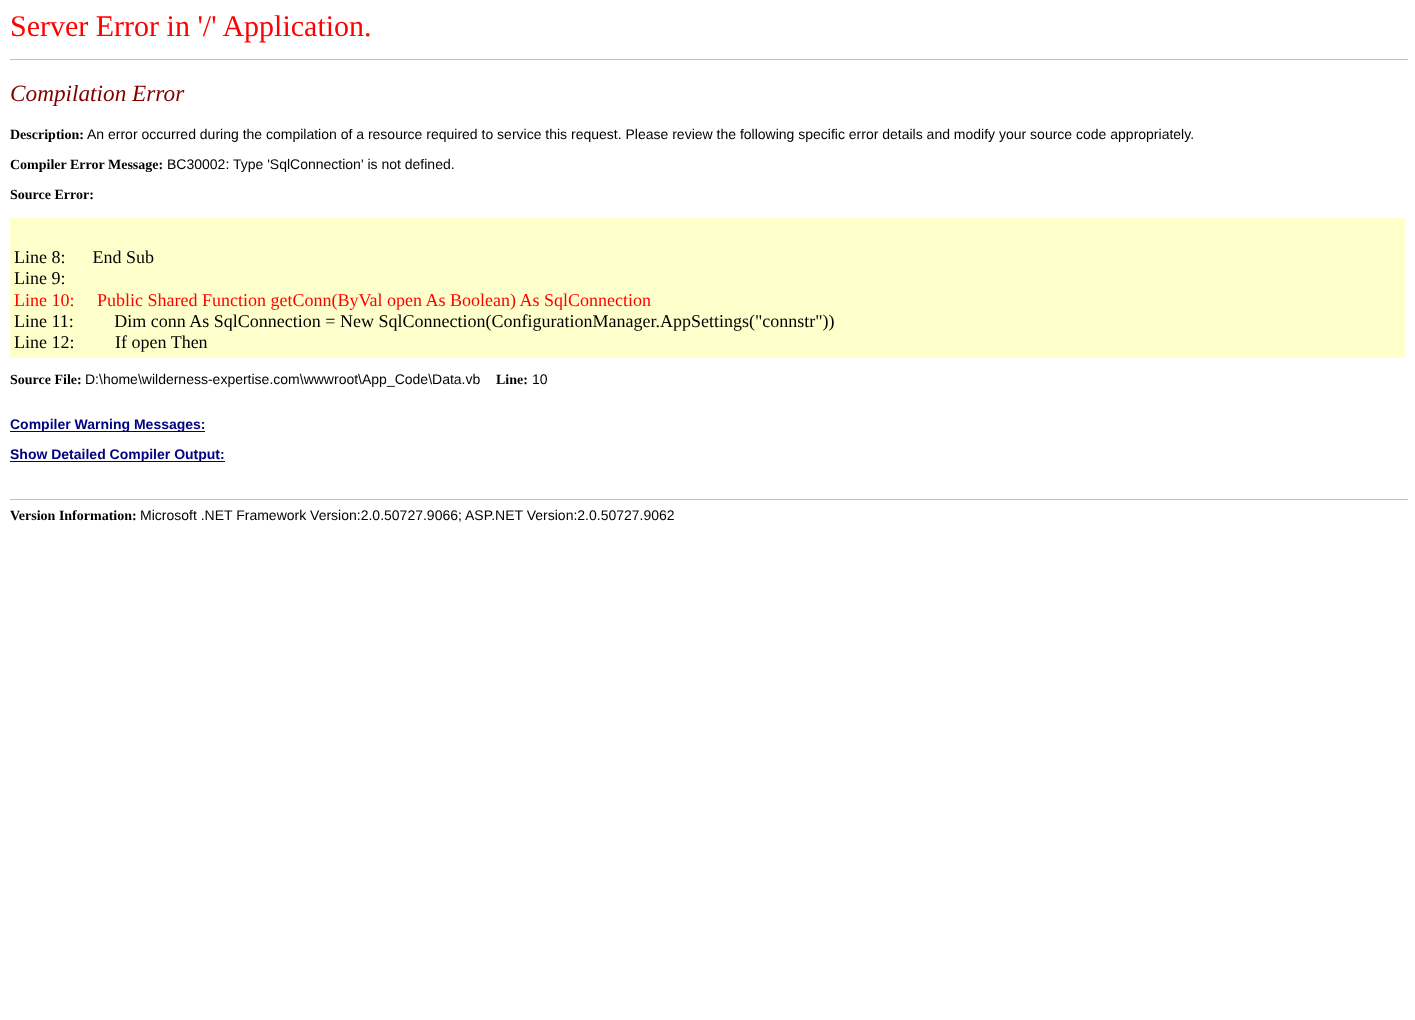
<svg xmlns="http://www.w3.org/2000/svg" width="1415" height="1020">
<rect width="100%" height="100%" fill="#fff"/>
<text x="10" y="36" style="font-family:Liberation Serif;font-size:30px;fill:#f00">Server Error in '/' Application.</text>
<rect x="10" y="59" width="1398" height="1" fill="#c0c0c0"/>
<text x="10" y="101" style="font-family:Liberation Serif;font-size:23.25px;font-style:italic;fill:#800000">Compilation Error</text>
<text x="10" y="139" style="font-family:Liberation Serif;font-size:14px;font-weight:bold;fill:#000">Description:</text>
<text x="87" y="139" style="font-family:Liberation Sans;font-size:14px;fill:#000">An error occurred during the compilation of a resource required to service this request. Please review the following specific error details and modify your source code appropriately.</text>
<text x="10" y="169" style="font-family:Liberation Serif;font-size:14px;font-weight:bold;fill:#000">Compiler Error Message:</text>
<text x="167" y="169" style="font-family:Liberation Sans;font-size:14px;fill:#000">BC30002: Type 'SqlConnection' is not defined.</text>
<text x="10" y="199" style="font-family:Liberation Serif;font-size:14px;font-weight:bold;fill:#000">Source Error:</text>
<rect x="10" y="218" width="1395" height="140" fill="#ffc"/>
<text x="14" y="263" style="font-family:Liberation Serif;font-size:18px;fill:#000" xml:space="preserve">Line 8:      End Sub</text>
<text x="14" y="284" style="font-family:Liberation Serif;font-size:18px;fill:#000">Line 9:</text>
<text x="14" y="306" style="font-family:Liberation Serif;font-size:18px;fill:#f00" xml:space="preserve">Line 10:     Public Shared Function getConn(ByVal open As Boolean) As SqlConnection</text>
<text x="14" y="327" style="font-family:Liberation Serif;font-size:18px;fill:#000" xml:space="preserve">Line 11:         Dim conn As SqlConnection = New SqlConnection(ConfigurationManager.AppSettings("connstr"))</text>
<text x="14" y="348" style="font-family:Liberation Serif;font-size:18px;fill:#000" xml:space="preserve">Line 12:         If open Then</text>
<text x="10" y="384" style="font-family:Liberation Serif;font-size:14px;font-weight:bold;fill:#000">Source File:</text>
<text x="85" y="384" style="font-family:Liberation Sans;font-size:14px;fill:#000">D:\home\wilderness-expertise.com\wwwroot\App_Code\Data.vb</text>
<text x="496" y="384" style="font-family:Liberation Serif;font-size:14px;font-weight:bold;fill:#000">Line:</text>
<text x="532" y="384" style="font-family:Liberation Sans;font-size:14px;fill:#000">10</text>
<rect x="10" y="431" width="195" height="1" fill="#000080"/>
<text x="10" y="429" style="font-family:Liberation Sans;font-size:14px;font-weight:bold;fill:#000080">Compiler Warning Messages:</text>
<rect x="10" y="461" width="215" height="1" fill="#000080"/>
<text x="10" y="459" style="font-family:Liberation Sans;font-size:14px;font-weight:bold;fill:#000080">Show Detailed Compiler Output:</text>
<rect x="10" y="499" width="1398" height="1" fill="#c0c0c0"/>
<text x="10" y="520" style="font-family:Liberation Serif;font-size:14px;font-weight:bold;fill:#000">Version Information:</text>
<text x="140" y="520" style="font-family:Liberation Sans;font-size:14px;fill:#000">Microsoft .NET Framework Version:2.0.50727.9066; ASP.NET Version:2.0.50727.9062</text>
</svg>
